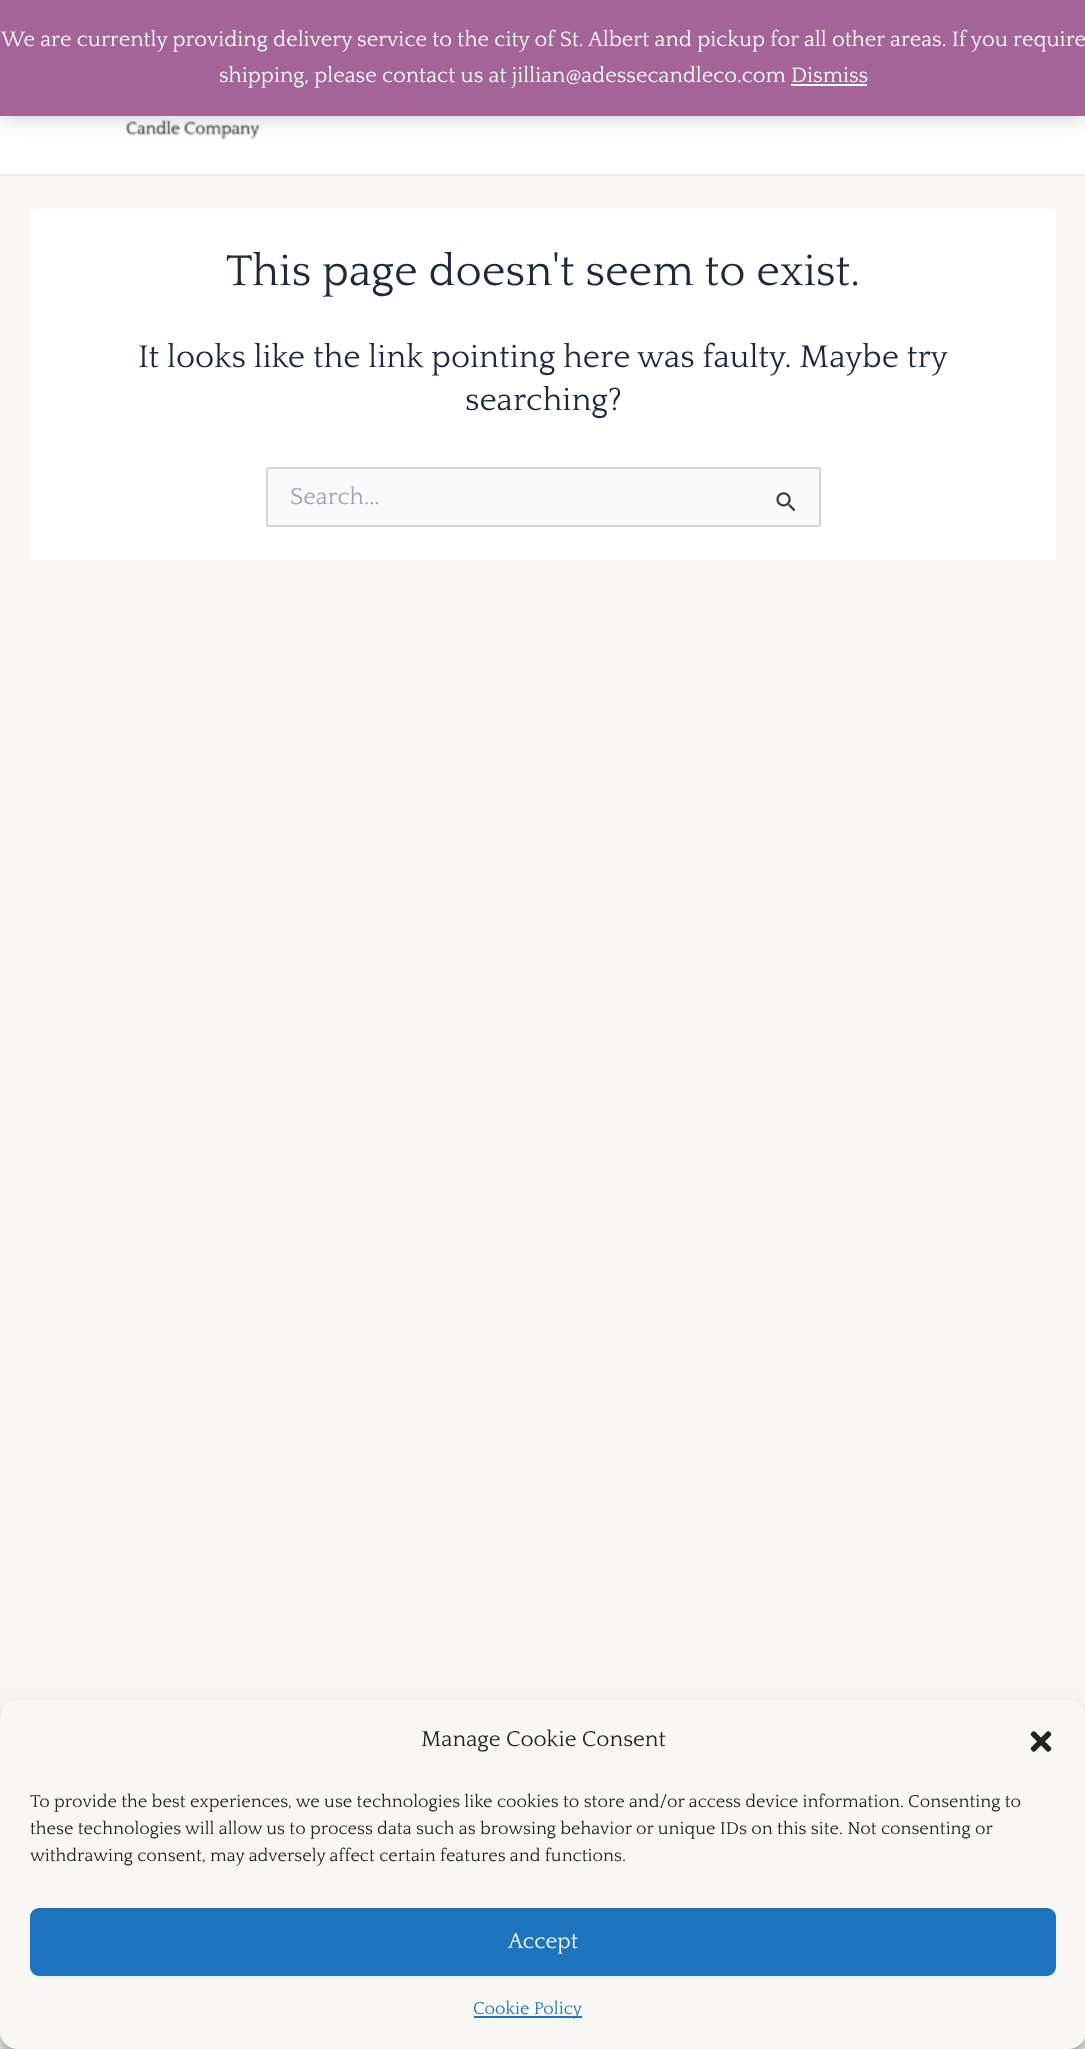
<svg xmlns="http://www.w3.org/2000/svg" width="1085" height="2049">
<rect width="100%" height="100%" fill="#f8f7f4"/>
<rect y="116" width="1085" height="58" fill="#fff"/>
<image x="125" y="119" width="135" height="21" href="media/1.png"/>
<rect y="2" width="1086" height="115" fill="#00000033" filter="blur(11px)"/>
<rect width="1085" height="116" fill="#a46497"/>
<text x="1" y="46" style="font-family:Quattrocento;font-size:21.9px;fill:#fff">We are currently providing delivery service to the city of St. Albert and pickup for all other areas. If you require</text>
<text x="219" y="82" style="font-family:Quattrocento;font-size:21.9px;fill:#fff">shipping, please contact us at jillian@adessecandleco.com Dismiss</text>
<rect x="791" y="84" width="76" height="2" fill="#fff"/>
<rect y="174" width="1085" height="2" fill="#eaeaea"/>
<rect x="30" y="209" width="1026" height="351" fill="#fff"/>
<text x="226" y="285" style="font-family:Quattrocento;font-size:45px;fill:#1e293b">This page doesn't seem to exist.</text>
<text x="138" y="367" style="font-family:Quattrocento;font-size:32.8px;fill:#1e293b">It looks like the link pointing here was faulty. Maybe try</text>
<text x="465" y="410" style="font-family:Quattrocento;font-size:32.8px;fill:#1e293b">searching?</text>
<rect x="267" y="468" width="553" height="58" rx="2" fill="#fafafa" stroke="#d1d5db" stroke-width="2"/>
<text x="290" y="504" style="font-family:Quattrocento;font-size:24px;fill:#9ca3af">Search...</text>
<image x="776" y="492" width="19" height="20" href="media/2.png"/>
<rect y="2031" width="1085" height="18" fill="#fff"/>
<rect y="1709" width="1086" height="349" rx="18" fill="#0000003b" filter="blur(4.5px)"/>
<rect y="1715" width="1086" height="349" rx="18" fill="#00000030" filter="blur(15px)"/>
<rect y="1700" width="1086" height="349" rx="18" fill="#f8f7f4"/>
<text x="421" y="1746" style="font-family:Quattrocento;font-size:22.5px;fill:#222">Manage Cookie Consent</text>
<image x="1030" y="1731" width="22" height="21" href="media/3.png"/>
<text x="30" y="1807" style="font-family:Quattrocento;font-size:18px;fill:#222">To provide the best experiences, we use technologies like cookies to store and/or access device information. Consenting to</text>
<text x="30" y="1834" style="font-family:Quattrocento;font-size:18px;fill:#222">these technologies will allow us to process data such as browsing behavior or unique IDs on this site. Not consenting or</text>
<text x="30" y="1861" style="font-family:Quattrocento;font-size:18px;fill:#222">withdrawing consent, may adversely affect certain features and functions.</text>
<rect x="30" y="1910" width="1026" height="67" rx="9" fill="#0000000d" filter="blur(1.5px)"/>
<rect x="31" y="1909" width="1024" height="66" rx="8" fill="#1e73be" stroke="#1e73be" stroke-width="2"/>
<text x="508" y="1948" style="font-family:Quattrocento;font-size:22.5px;fill:#fff">Accept</text>
<rect x="474" y="2016" width="108" height="2" fill="#1e73be"/>
<text x="473" y="2014" style="font-family:Quattrocento;font-size:18px;fill:#1e73be">Cookie Policy</text>
</svg>
